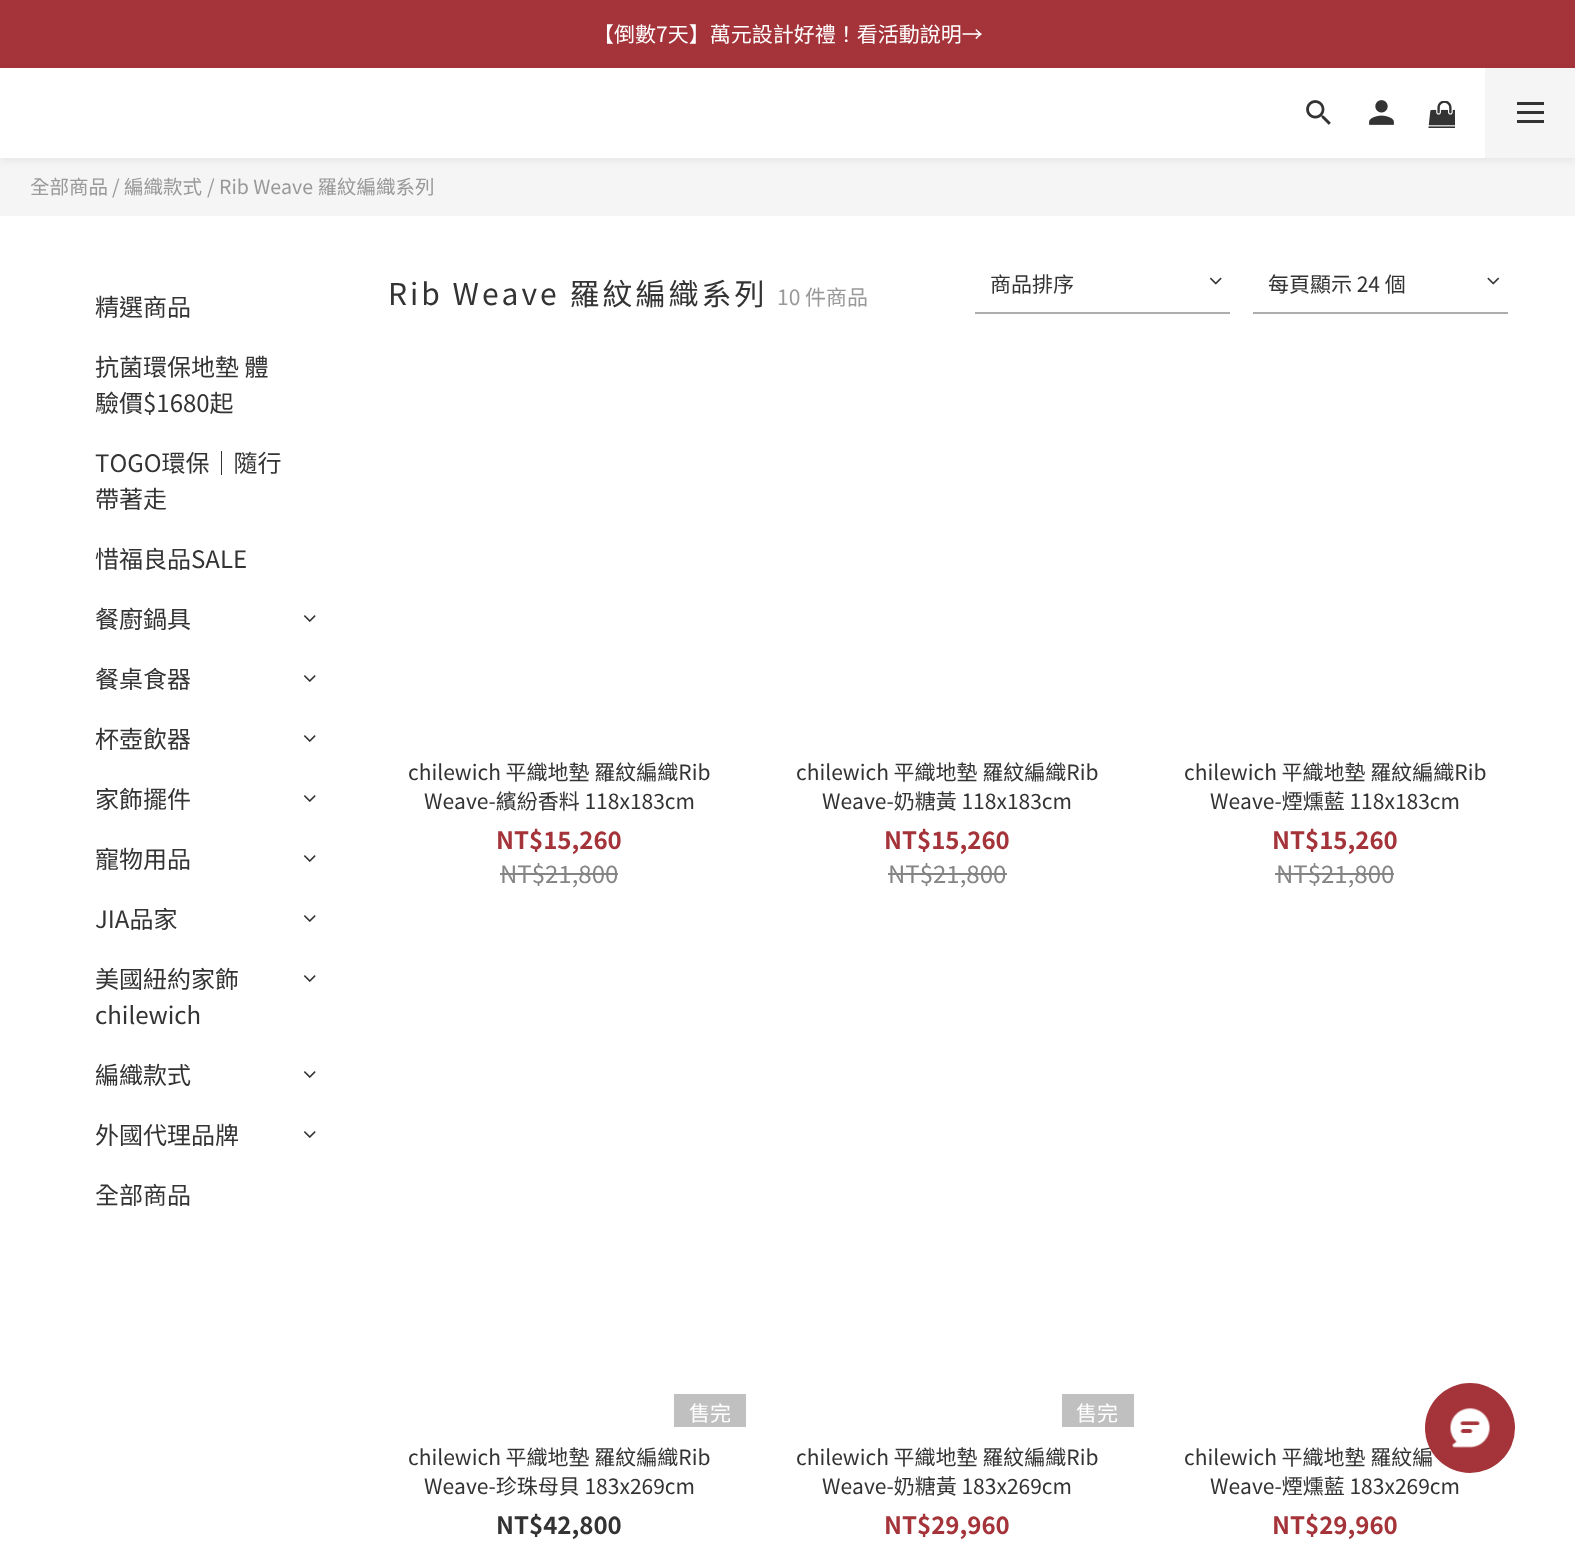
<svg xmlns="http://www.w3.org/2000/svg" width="1575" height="1556">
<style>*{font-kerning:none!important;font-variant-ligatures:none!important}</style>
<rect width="100%" height="100%" fill="#fff"/>
<rect width="1575" height="68" fill="#a4343a"/>
<text x="593" y="42" style="font-family:Noto Sans TC;font-size:21px;fill:#fff">【倒數7天】萬元設計好禮！看活動說明→</text>
<rect y="158" width="1575" height="58" fill="#f5f5f5"/>
<rect y="71" width="1575" height="90" fill="#0000000f" filter="blur(4.5px)"/>
<rect y="68" width="1485" height="90" fill="#fff"/>
<image x="1306" y="100" width="25" height="25" href="media/1.png"/>
<image x="1369" y="100" width="25" height="25" href="media/2.png"/>
<image x="1428" y="101" width="27" height="27" href="media/3.png"/>
<rect x="1485" y="68" width="90" height="90" fill="#f5f5f5"/>
<rect x="1517" y="111" width="27" height="3" fill="#333"/>
<rect x="1517" y="102" width="27" height="3" fill="#333"/>
<rect x="1517" y="120" width="27" height="3" fill="#333"/>
<text x="30" y="194" style="font-family:Noto Sans TC;font-size:19.5px;fill:#999">全部商品</text>
<text x="112" y="194" style="font-family:Noto Sans TC;font-size:19.5px;fill:#999">/ 編織款式</text>
<text x="207" y="194" style="font-family:Noto Sans TC;font-size:19.5px;fill:#999">/ Rib Weave 羅紋編織系列</text>
<text x="95" y="316" style="font-family:Noto Sans TC;font-size:24px;fill:#333">精選商品</text>
<text x="95" y="376" style="font-family:Noto Sans TC;font-size:24px;fill:#333">抗菌環保地墊 體</text>
<text x="95" y="412" style="font-family:Noto Sans TC;font-size:24px;fill:#333">驗價$1680起</text>
<text x="95" y="472" style="font-family:Noto Sans TC;font-size:24px;fill:#333">TOGO環保｜隨行</text>
<text x="95" y="508" style="font-family:Noto Sans TC;font-size:24px;fill:#333">帶著走</text>
<text x="95" y="568" style="font-family:Noto Sans TC;font-size:24px;fill:#333">惜福良品SALE</text>
<text x="95" y="628" style="font-family:Noto Sans TC;font-size:24px;fill:#333">餐廚鍋具</text>
<image x="304" y="615" width="12" height="7" href="media/4.png"/>
<text x="95" y="688" style="font-family:Noto Sans TC;font-size:24px;fill:#333">餐桌食器</text>
<image x="304" y="675" width="12" height="7" href="media/4.png"/>
<text x="95" y="748" style="font-family:Noto Sans TC;font-size:24px;fill:#333">杯壺飲器</text>
<image x="304" y="735" width="12" height="7" href="media/4.png"/>
<text x="95" y="808" style="font-family:Noto Sans TC;font-size:24px;fill:#333">家飾擺件</text>
<image x="304" y="795" width="12" height="7" href="media/4.png"/>
<text x="95" y="868" style="font-family:Noto Sans TC;font-size:24px;fill:#333">寵物用品</text>
<image x="304" y="855" width="12" height="7" href="media/4.png"/>
<text x="95" y="928" style="font-family:Noto Sans TC;font-size:24px;fill:#333">JIA品家</text>
<image x="304" y="915" width="12" height="7" href="media/4.png"/>
<text x="95" y="988" style="font-family:Noto Sans TC;font-size:24px;fill:#333">美國紐約家飾</text>
<text x="95" y="1024" style="font-family:Noto Sans TC;font-size:24px;fill:#333">chilewich</text>
<image x="304" y="975" width="12" height="7" href="media/4.png"/>
<text x="95" y="1084" style="font-family:Noto Sans TC;font-size:24px;fill:#333">編織款式</text>
<image x="304" y="1071" width="12" height="7" href="media/4.png"/>
<text x="95" y="1144" style="font-family:Noto Sans TC;font-size:24px;fill:#333">外國代理品牌</text>
<image x="304" y="1131" width="12" height="7" href="media/4.png"/>
<text x="95" y="1204" style="font-family:Noto Sans TC;font-size:24px;fill:#333">全部商品</text>
<text x="388" y="305" style="font-family:Noto Sans TC;font-size:30px;letter-spacing:3px;fill:#333">Rib Weave 羅紋編織系列</text>
<text x="777" y="305" style="font-family:Noto Sans TC;font-size:21px;fill:#999">10 件商品</text>
<text x="990" y="292" style="font-family:Noto Sans TC;font-size:21px;fill:#333">商品排序</text>
<rect x="975" y="312" width="255" height="2" fill="#adadad"/>
<image x="1209" y="277" width="13" height="8" href="media/5.png"/>
<text x="1268" y="292" style="font-family:Noto Sans TC;font-size:21px;fill:#333">每頁顯示 24 個</text>
<rect x="1253" y="312" width="255" height="2" fill="#adadad"/>
<image x="1487" y="277" width="13" height="8" href="media/6.png"/>
<text x="408" y="780" style="font-family:Noto Sans TC;font-size:21px;fill:#333">chilewich 平織地墊 羅紋編織Rib</text>
<text x="424" y="809" style="font-family:Noto Sans TC;font-size:21px;fill:#333">Weave-繽紛香料 118x183cm</text>
<text x="496" y="849" style="font-family:Noto Sans TC;font-size:24px;font-weight:bold;fill:#a4343a">NT$15,260</text>
<text x="500" y="883" style="font-family:Noto Sans TC;font-size:24px;fill:#858585">NT$21,800</text>
<rect x="500" y="873" width="118" height="2" fill="#858585"/>
<text x="796" y="780" style="font-family:Noto Sans TC;font-size:21px;fill:#333">chilewich 平織地墊 羅紋編織Rib</text>
<text x="822" y="809" style="font-family:Noto Sans TC;font-size:21px;fill:#333">Weave-奶糖黃 118x183cm</text>
<text x="884" y="849" style="font-family:Noto Sans TC;font-size:24px;font-weight:bold;fill:#a4343a">NT$15,260</text>
<text x="888" y="883" style="font-family:Noto Sans TC;font-size:24px;fill:#858585">NT$21,800</text>
<rect x="888" y="873" width="119" height="2" fill="#858585"/>
<text x="1184" y="780" style="font-family:Noto Sans TC;font-size:21px;fill:#333">chilewich 平織地墊 羅紋編織Rib</text>
<text x="1210" y="809" style="font-family:Noto Sans TC;font-size:21px;fill:#333">Weave-煙燻藍 118x183cm</text>
<text x="1272" y="849" style="font-family:Noto Sans TC;font-size:24px;font-weight:bold;fill:#a4343a">NT$15,260</text>
<text x="1276" y="883" style="font-family:Noto Sans TC;font-size:24px;fill:#858585">NT$21,800</text>
<rect x="1275" y="873" width="119" height="2" fill="#858585"/>
<rect x="674" y="1394" width="72" height="33" fill="#c0c0c0"/>
<text x="689" y="1421" style="font-family:Noto Sans TC;font-size:21px;fill:#fff">售完</text>
<text x="408" y="1465" style="font-family:Noto Sans TC;font-size:21px;fill:#333">chilewich 平織地墊 羅紋編織Rib</text>
<text x="424" y="1494" style="font-family:Noto Sans TC;font-size:21px;fill:#333">Weave-珍珠母貝 183x269cm</text>
<text x="496" y="1534" style="font-family:Noto Sans TC;font-size:24px;font-weight:bold;fill:#333">NT$42,800</text>
<rect x="1062" y="1394" width="72" height="33" fill="#c0c0c0"/>
<text x="1076" y="1421" style="font-family:Noto Sans TC;font-size:21px;fill:#fff">售完</text>
<text x="796" y="1465" style="font-family:Noto Sans TC;font-size:21px;fill:#333">chilewich 平織地墊 羅紋編織Rib</text>
<text x="822" y="1494" style="font-family:Noto Sans TC;font-size:21px;fill:#333">Weave-奶糖黃 183x269cm</text>
<text x="884" y="1534" style="font-family:Noto Sans TC;font-size:24px;font-weight:bold;fill:#a4343a">NT$29,960</text>
<text x="1184" y="1465" style="font-family:Noto Sans TC;font-size:21px;fill:#333">chilewich 平織地墊 羅紋編</text>
<text x="1210" y="1494" style="font-family:Noto Sans TC;font-size:21px;fill:#333">Weave-煙燻藍 183x269cm</text>
<text x="1272" y="1534" style="font-family:Noto Sans TC;font-size:24px;font-weight:bold;fill:#a4343a">NT$29,960</text>
<circle cx="1470" cy="1428" r="45" fill="#a4343a"/>
<image x="1450" y="1408" width="40" height="40" href="media/7.png"/>
</svg>
